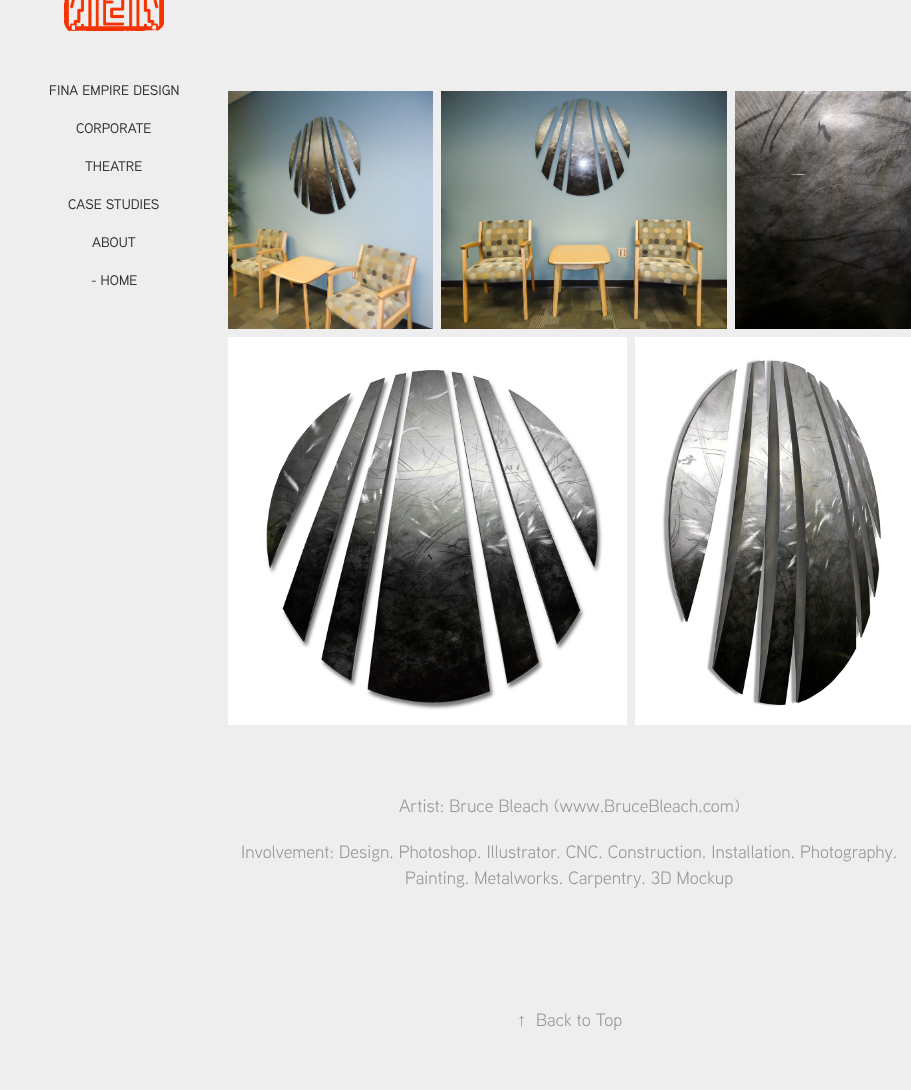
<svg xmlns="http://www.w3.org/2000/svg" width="911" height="1090">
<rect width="100%" height="100%" fill="#eee"/>
<image x="64" y="0" width="100" height="31" href="media/1.png"/>
<text x="49" y="95" style="font-family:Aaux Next;font-size:14px;font-weight:500;fill:#333">FINA EMPIRE DESIGN</text>
<text x="76" y="133" style="font-family:Aaux Next;font-size:14px;font-weight:500;fill:#333">CORPORATE</text>
<text x="85" y="171" style="font-family:Aaux Next;font-size:14px;font-weight:500;fill:#333">THEATRE</text>
<text x="68" y="209" style="font-family:Aaux Next;font-size:14px;font-weight:500;fill:#333">CASE STUDIES</text>
<text x="92" y="247" style="font-family:Aaux Next;font-size:14px;font-weight:500;fill:#333">ABOUT</text>
<text x="91" y="285" style="font-family:Aaux Next;font-size:14px;font-weight:500;fill:#333">- HOME</text>
<image x="228" y="91" width="205" height="238" href="media/2.png"/>
<image x="441" y="91" width="286" height="238" href="media/3.png"/>
<image x="735" y="91" width="176" height="238" href="media/4.png"/>
<image x="228" y="337" width="399" height="388" href="media/5.png"/>
<image x="635" y="337" width="276" height="388" href="media/6.png"/>
<text x="399" y="812" style="font-family:Aaux Next;font-size:18px;fill:#999">Artist: Bruce Bleach (www.BruceBleach.com)</text>
<text x="241" y="858" style="font-family:Aaux Next;font-size:18px;fill:#999">Involvement: Design. Photoshop. Illustrator. CNC. Construction. Installation. Photography.</text>
<text x="405" y="884" style="font-family:Aaux Next;font-size:18px;fill:#999">Painting. Metalworks. Carpentry. 3D Mockup</text>
<text x="517" y="1026" style="font-family:Liberation Serif;font-size:18px;fill:#999">↑</text>
<text x="536" y="1026" style="font-family:Aaux Next;font-size:18px;fill:#999">Back to Top</text>
</svg>
